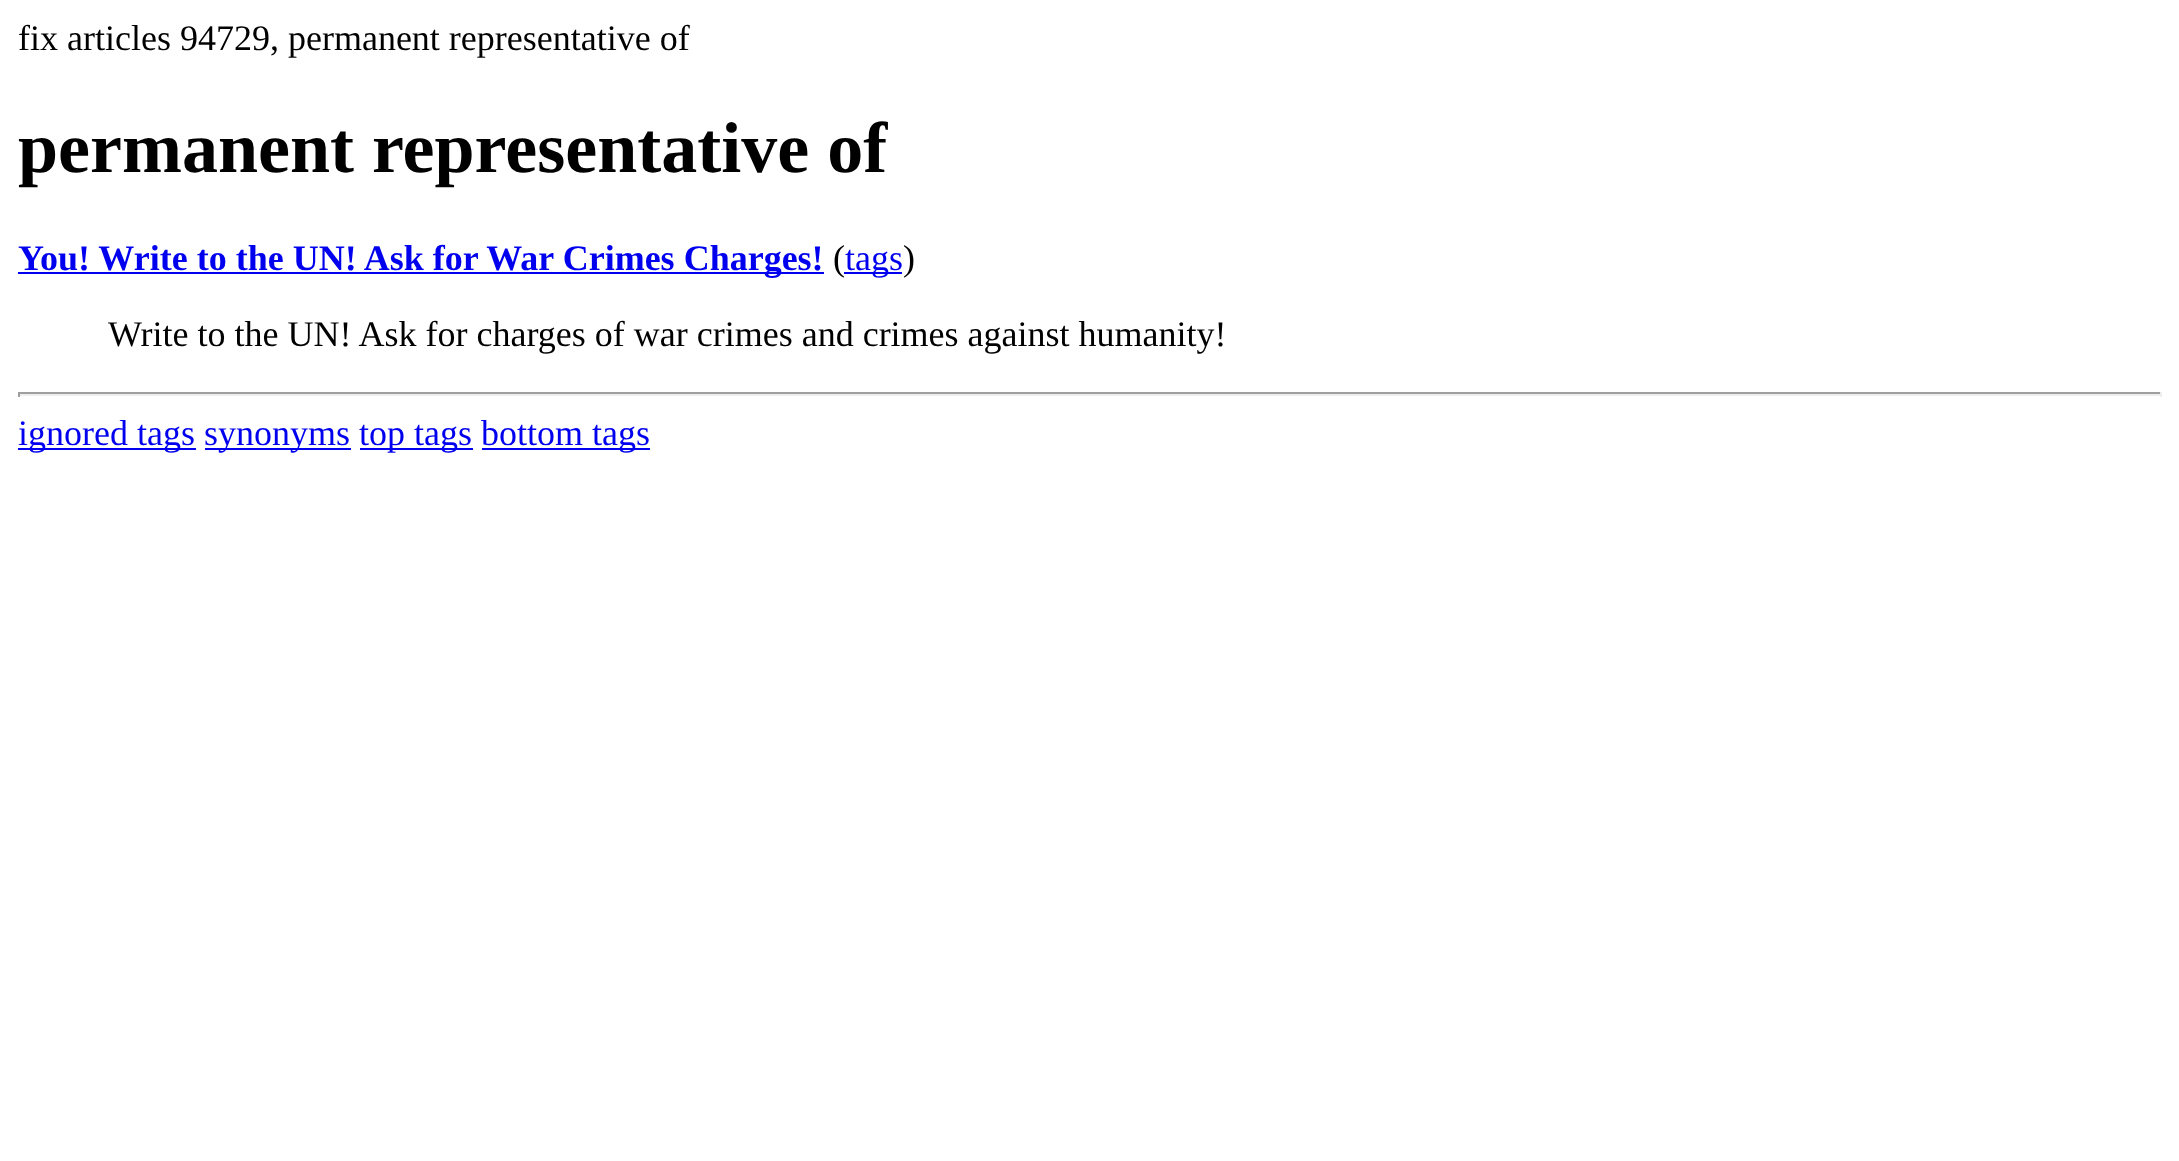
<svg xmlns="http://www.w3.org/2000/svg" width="2179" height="1161">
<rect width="100%" height="100%" fill="#fff"/>
<text x="18" y="50" style="font-family:Liberation Serif;font-size:36px;fill:#000">fix articles 94729, permanent representative of</text>
<text x="18" y="172" style="font-family:Liberation Serif;font-size:72px;font-weight:bold;fill:#000">permanent representative of</text>
<rect x="18" y="272" width="806" height="2" fill="#00e"/>
<text x="18" y="270" style="font-family:Liberation Serif;font-size:36px;font-weight:bold;fill:#00e">You! Write to the UN! Ask for War Crimes Charges!</text>
<text x="833" y="270" style="font-family:Liberation Serif;font-size:36px;fill:#000">(</text>
<rect x="844" y="272" width="58" height="2" fill="#00e"/>
<text x="845" y="270" style="font-family:Liberation Serif;font-size:36px;fill:#00e">tags</text>
<text x="903" y="270" style="font-family:Liberation Serif;font-size:36px;fill:#000">)</text>
<text x="108" y="346" style="font-family:Liberation Serif;font-size:36px;fill:#000">Write to the UN! Ask for charges of war crimes and crimes against humanity!</text>
<rect x="18" y="392" width="2144" height="2" fill="#9f9f9f"/>
<rect x="2160" y="392" width="2" height="5" fill="#eee"/>
<rect x="18" y="394" width="2144" height="2" fill="#eee"/>
<rect x="18" y="392" width="2" height="5" fill="#9f9f9f"/>
<rect x="18" y="448" width="178" height="2" fill="#00e"/>
<text x="18" y="445" style="font-family:Liberation Serif;font-size:36px;fill:#00e">ignored tags</text>
<rect x="205" y="448" width="146" height="2" fill="#00e"/>
<text x="204" y="445" style="font-family:Liberation Serif;font-size:36px;fill:#00e">synonyms</text>
<rect x="360" y="448" width="113" height="2" fill="#00e"/>
<text x="359" y="445" style="font-family:Liberation Serif;font-size:36px;fill:#00e">top tags</text>
<rect x="482" y="448" width="168" height="2" fill="#00e"/>
<text x="481" y="445" style="font-family:Liberation Serif;font-size:36px;fill:#00e">bottom tags</text>
</svg>
